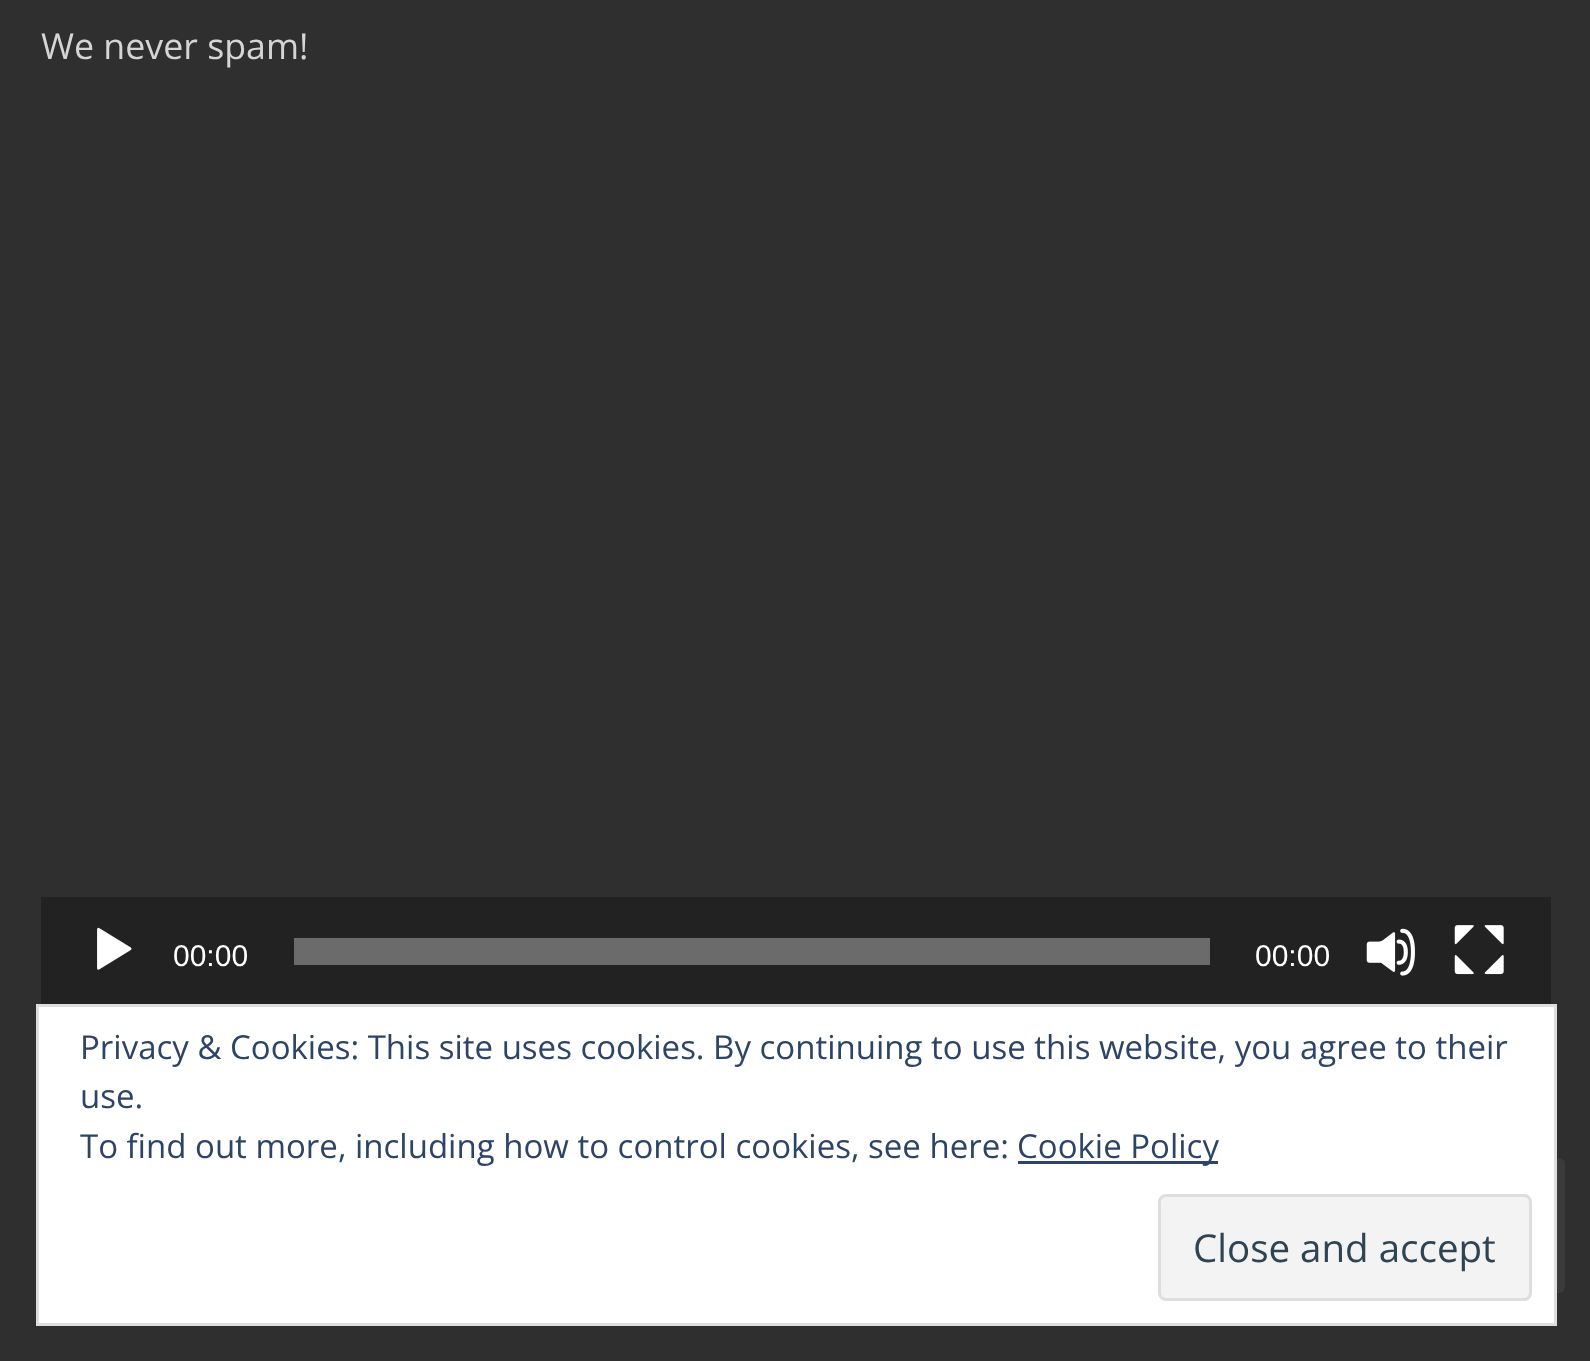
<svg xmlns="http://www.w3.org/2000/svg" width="1590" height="1361">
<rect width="100%" height="100%" fill="#2f2f2f"/>
<text x="41" y="59" style="font-family:Open Sans;font-size:35.75px;fill:#d5d5d5">We never spam!</text>
<rect x="41" y="897" width="1510" height="107" fill="#222"/>
<image x="97" y="927" width="35" height="43" href="media/1.png"/>
<text x="173" y="966" style="font-family:Liberation Sans;font-size:30px;fill:#fff">00:00</text>
<rect x="294" y="938" width="916" height="27" fill="#6b6b6b"/>
<text x="1255" y="966" style="font-family:Liberation Sans;font-size:30px;fill:#fff">00:00</text>
<image x="1366" y="928" width="49" height="48" href="media/2.png"/>
<image x="1454" y="925" width="50" height="50" href="media/3.png"/>
<rect x="1430" y="1158" width="135" height="135" rx="6" fill="#3b3b3b"/>
<rect x="37.5" y="1005.5" width="1518" height="319" fill="#fff" stroke="#dedede" stroke-width="3"/>
<text x="80" y="1059" style="font-family:Open Sans;font-size:33px;fill:#2e4467">Privacy &amp; Cookies: This site uses cookies. By continuing to use this website, you agree to their</text>
<text x="80" y="1108" style="font-family:Open Sans;font-size:33px;fill:#2e4467">use.</text>
<text x="80" y="1158" style="font-family:Open Sans;font-size:33px;fill:#2e4467">To find out more, including how to control cookies, see here:</text>
<rect x="1018" y="1161" width="200" height="3" fill="#2e4467"/>
<text x="1017" y="1158" style="font-family:Open Sans;font-size:33px;fill:#2e4467">Cookie Policy</text>
<rect x="1159.5" y="1195.5" width="371" height="104" rx="6.5" fill="#f3f3f3" stroke="#dedede" stroke-width="3"/>
<text x="1193" y="1262" style="font-family:Open Sans;font-size:38.5px;fill:#2e4453">Close and accept</text>
</svg>
